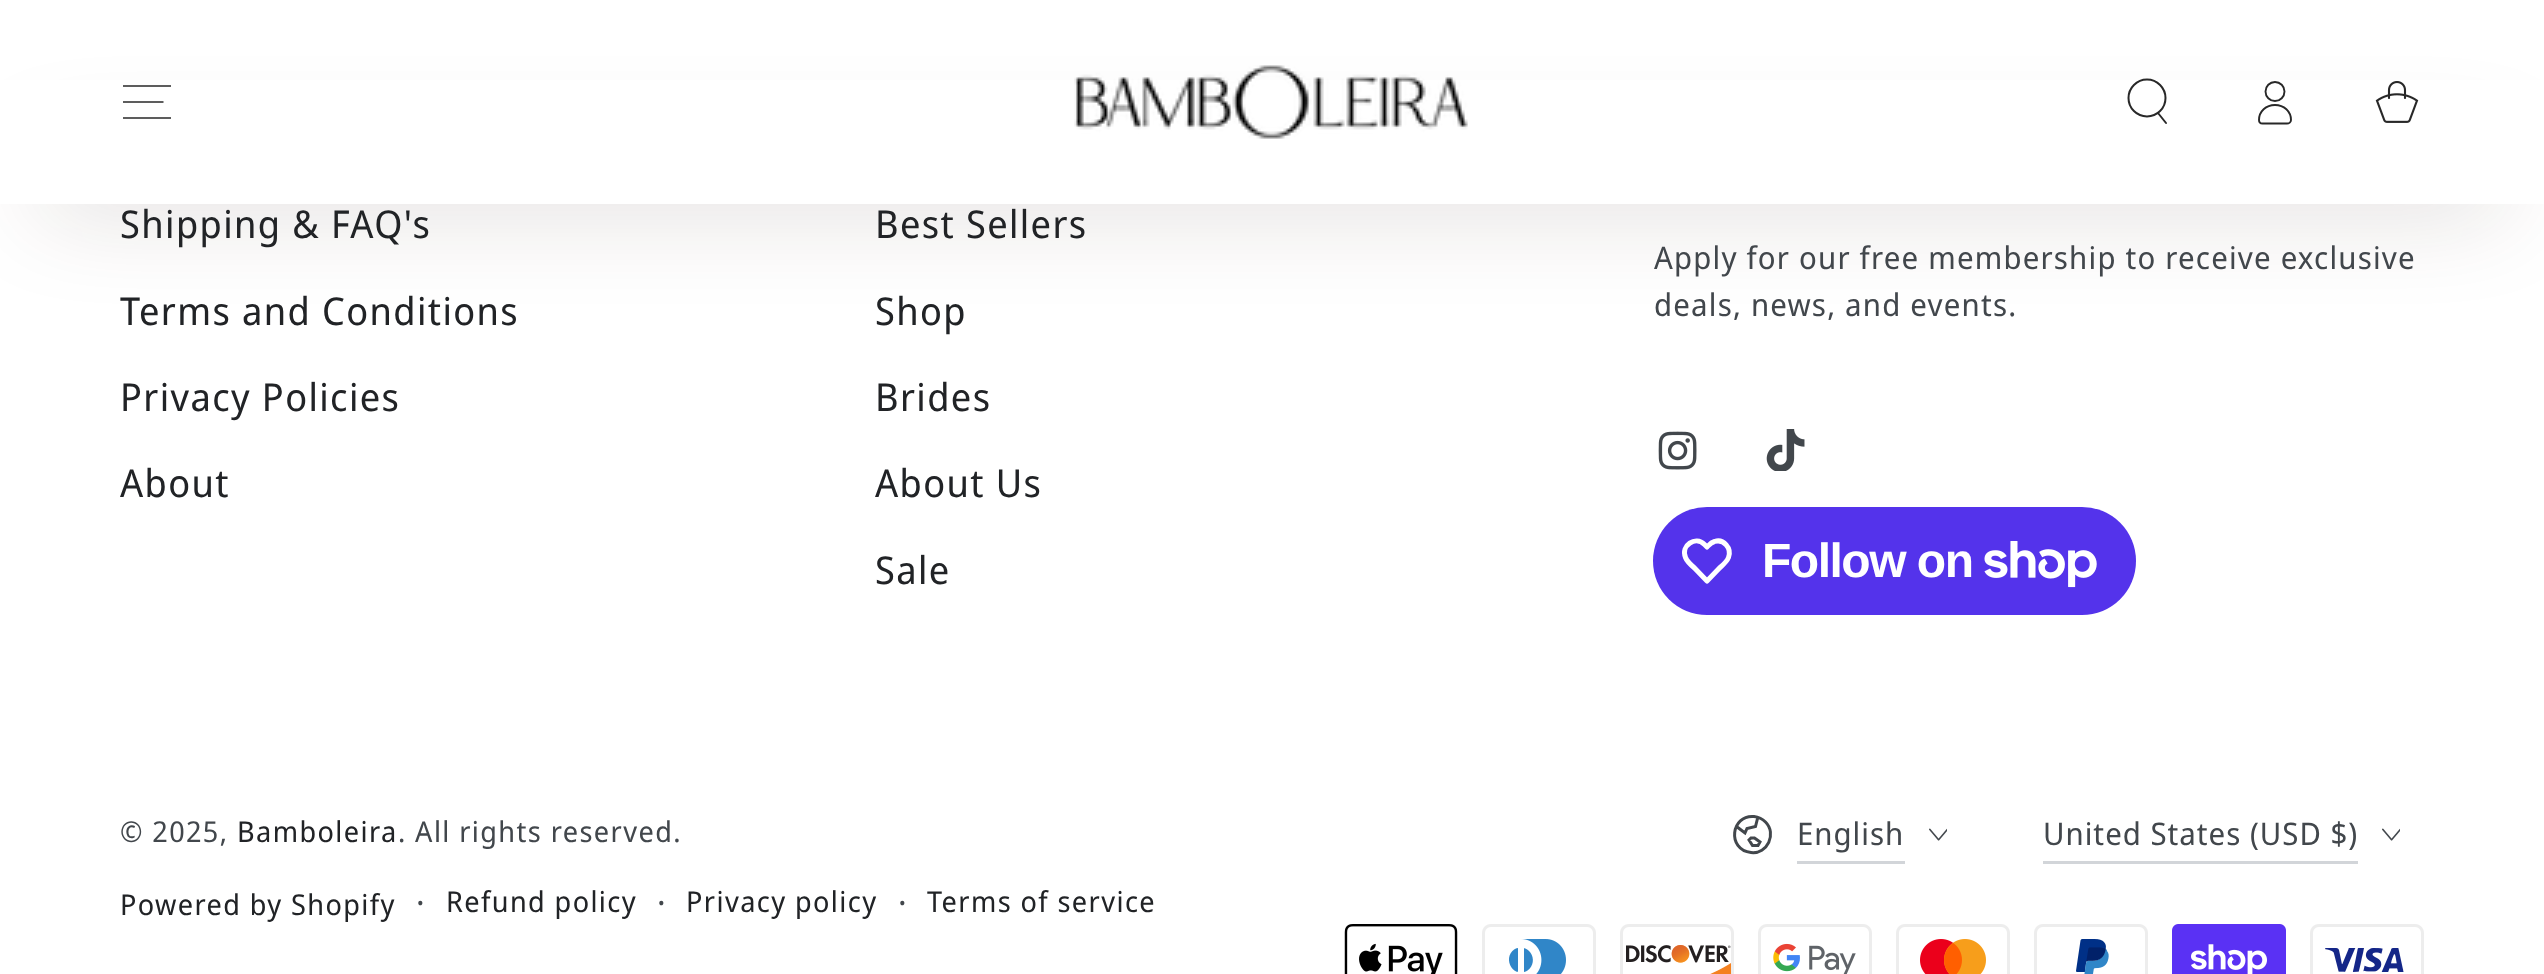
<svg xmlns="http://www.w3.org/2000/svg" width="2544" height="974">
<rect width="100%" height="100%" fill="#fff"/>
<rect x="36" y="156" width="2472" height="48" rx="24" fill="#2a0e0a33" filter="blur(48px)"/>
<rect y="80" width="2544" height="124" fill="#fff"/>
<image x="1074" y="65" width="394" height="74" href="media/1.png"/>
<circle cx="2147" cy="98" r="18.5" fill="none" stroke="#282828" stroke-width="2"/>
<path d="M2158 113l8 10" fill="none" stroke="#282828" stroke-width="2" stroke-linecap="round"/>
<path d="M2275 105c-9 0-16 6.5-16 15c0 2 1.5 3.5 3.5 3.5h24.5c2 0 4-1.5 4-3.5c0-8.5-7-15-16-15z" fill="none" stroke="#282828" stroke-width="1.9"/>
<circle cx="2275" cy="91.5" r="9.5" fill="none" stroke="#282828" stroke-width="1.9"/>
<image x="2375" y="81" width="44" height="42" href="media/2.png"/>
<path d="M123 118h48m-48-16h40.5m-40.5-16h48" fill="none" stroke="#282828" stroke-width="1.5"/>
<text x="120" y="238" style="font-family:Noto Sans Display;font-size:38.4px;letter-spacing:1.4px;fill:#212326">Shipping &amp; FAQ's</text>
<text x="120" y="325" style="font-family:Noto Sans Display;font-size:38.4px;letter-spacing:1.4px;fill:#212326">Terms and Conditions</text>
<text x="120" y="411" style="font-family:Noto Sans Display;font-size:38.4px;letter-spacing:1.4px;fill:#212326">Privacy Policies</text>
<text x="120" y="497" style="font-family:Noto Sans Display;font-size:38.4px;letter-spacing:1.4px;fill:#212326">About</text>
<text x="875" y="238" style="font-family:Noto Sans Display;font-size:38.4px;letter-spacing:1.4px;fill:#212326">Best Sellers</text>
<text x="875" y="325" style="font-family:Noto Sans Display;font-size:38.4px;letter-spacing:1.4px;fill:#212326">Shop</text>
<text x="875" y="411" style="font-family:Noto Sans Display;font-size:38.4px;letter-spacing:1.4px;fill:#212326">Brides</text>
<text x="875" y="497" style="font-family:Noto Sans Display;font-size:38.4px;letter-spacing:1.4px;fill:#212326">About Us</text>
<text x="875" y="584" style="font-family:Noto Sans Display;font-size:38.4px;letter-spacing:1.4px;fill:#212326">Sale</text>
<text x="1654" y="269" style="font-family:Noto Sans Display;font-size:31.2px;letter-spacing:1.2px;fill:#42474c">Apply for our free membership to receive exclusive</text>
<text x="1654" y="316" style="font-family:Noto Sans Display;font-size:31.2px;letter-spacing:1.2px;fill:#42474c">deals, news, and events.</text>
<image x="1658" y="431" width="39" height="39" href="media/3.png"/>
<image x="1766" y="429" width="39" height="42" href="media/4.png"/>
<rect x="1653" y="507" width="483" height="108" rx="54" fill="#5433eb"/>
<path d="M1704.5 544.5l2.5 2.5c2-2 4-4.5 7.5-5.5c9-3 17.5 6.5 14 16c-1.5 4-5.5 7.5-9 10.5l-12.5 13l-12.5-13c-3.5-3-7.5-6.5-9-10.5c-5-12 10-22 19-13z" fill="none" stroke="#fff" stroke-width="5" stroke-linejoin="round"/>
<text x="1762" y="577" style="font-family:Liberation Sans;font-size:48px;font-weight:bold;letter-spacing:-1.5px;fill:#fff">Follow on</text>
<image x="1984" y="541" width="113" height="47" href="media/5.png"/>
<text x="120" y="842" style="font-family:Noto Sans Display;font-size:28.75px;letter-spacing:1.4px;fill:#42474c">© 2025,</text>
<text x="237" y="842" style="font-family:Noto Sans Display;font-size:28.75px;letter-spacing:1.4px;fill:#212326">Bamboleira</text>
<text x="398" y="842" style="font-family:Noto Sans Display;font-size:28.75px;letter-spacing:1.4px;fill:#42474c">. All rights reserved.</text>
<text x="120" y="915" style="font-family:Noto Sans Display;font-size:28.75px;letter-spacing:1.4px;fill:#212326">Powered by Shopify</text>
<text x="416" y="915" style="font-family:Noto Sans Display;font-size:34px;letter-spacing:1.4px;fill:#42474c">·</text>
<text x="446" y="912" style="font-family:Noto Sans Display;font-size:28.75px;letter-spacing:1.4px;fill:#212326">Refund policy</text>
<text x="657" y="915" style="font-family:Noto Sans Display;font-size:34px;letter-spacing:1.4px;fill:#42474c">·</text>
<text x="686" y="912" style="font-family:Noto Sans Display;font-size:28.75px;letter-spacing:1.4px;fill:#212326">Privacy policy</text>
<text x="898" y="915" style="font-family:Noto Sans Display;font-size:34px;letter-spacing:1.4px;fill:#42474c">·</text>
<text x="927" y="912" style="font-family:Noto Sans Display;font-size:28.75px;letter-spacing:1.4px;fill:#212326">Terms of service</text>
<path d="M1758 845.5l2-3.5l-5.5-4h-3.5l-2 2l3.5 5.5zm-4-29c-23-2-27.5 33-3 36c16.5 2 26-19 14.5-30.5c-3-3-7-5-11.5-5.5zm-17.5 10l8.5 6.5l2-4.5l8.5-2l2.5-10" fill="none" stroke="#42474c" stroke-width="3"/>
<rect x="1797" y="861" width="108" height="3" fill="#d2d5d9"/>
<text x="1797" y="845" style="font-family:Noto Sans Display;font-size:31.2px;letter-spacing:1px;fill:#42474c">English</text>
<image x="1929" y="828" width="18" height="13" href="media/6.png"/>
<rect x="2043" y="861" width="315" height="3" fill="#d2d5d9"/>
<text x="2043" y="845" style="font-family:Noto Sans Display;font-size:31.2px;letter-spacing:1px;fill:#42474c">United States (USD $)</text>
<image x="2382" y="828" width="18" height="13" href="media/6.png"/>
<image x="1344" y="924" width="114" height="50" href="media/7.png"/>
<image x="1482" y="924" width="114" height="50" href="media/8.png"/>
<image x="1620" y="924" width="114" height="50" href="media/9.png"/>
<image x="1758" y="924" width="114" height="50" href="media/10.png"/>
<image x="1896" y="924" width="114" height="50" href="media/11.png"/>
<image x="2034" y="924" width="114" height="50" href="media/12.png"/>
<image x="2172" y="924" width="114" height="50" href="media/13.png"/>
<image x="2310" y="924" width="114" height="50" href="media/14.png"/>
</svg>
